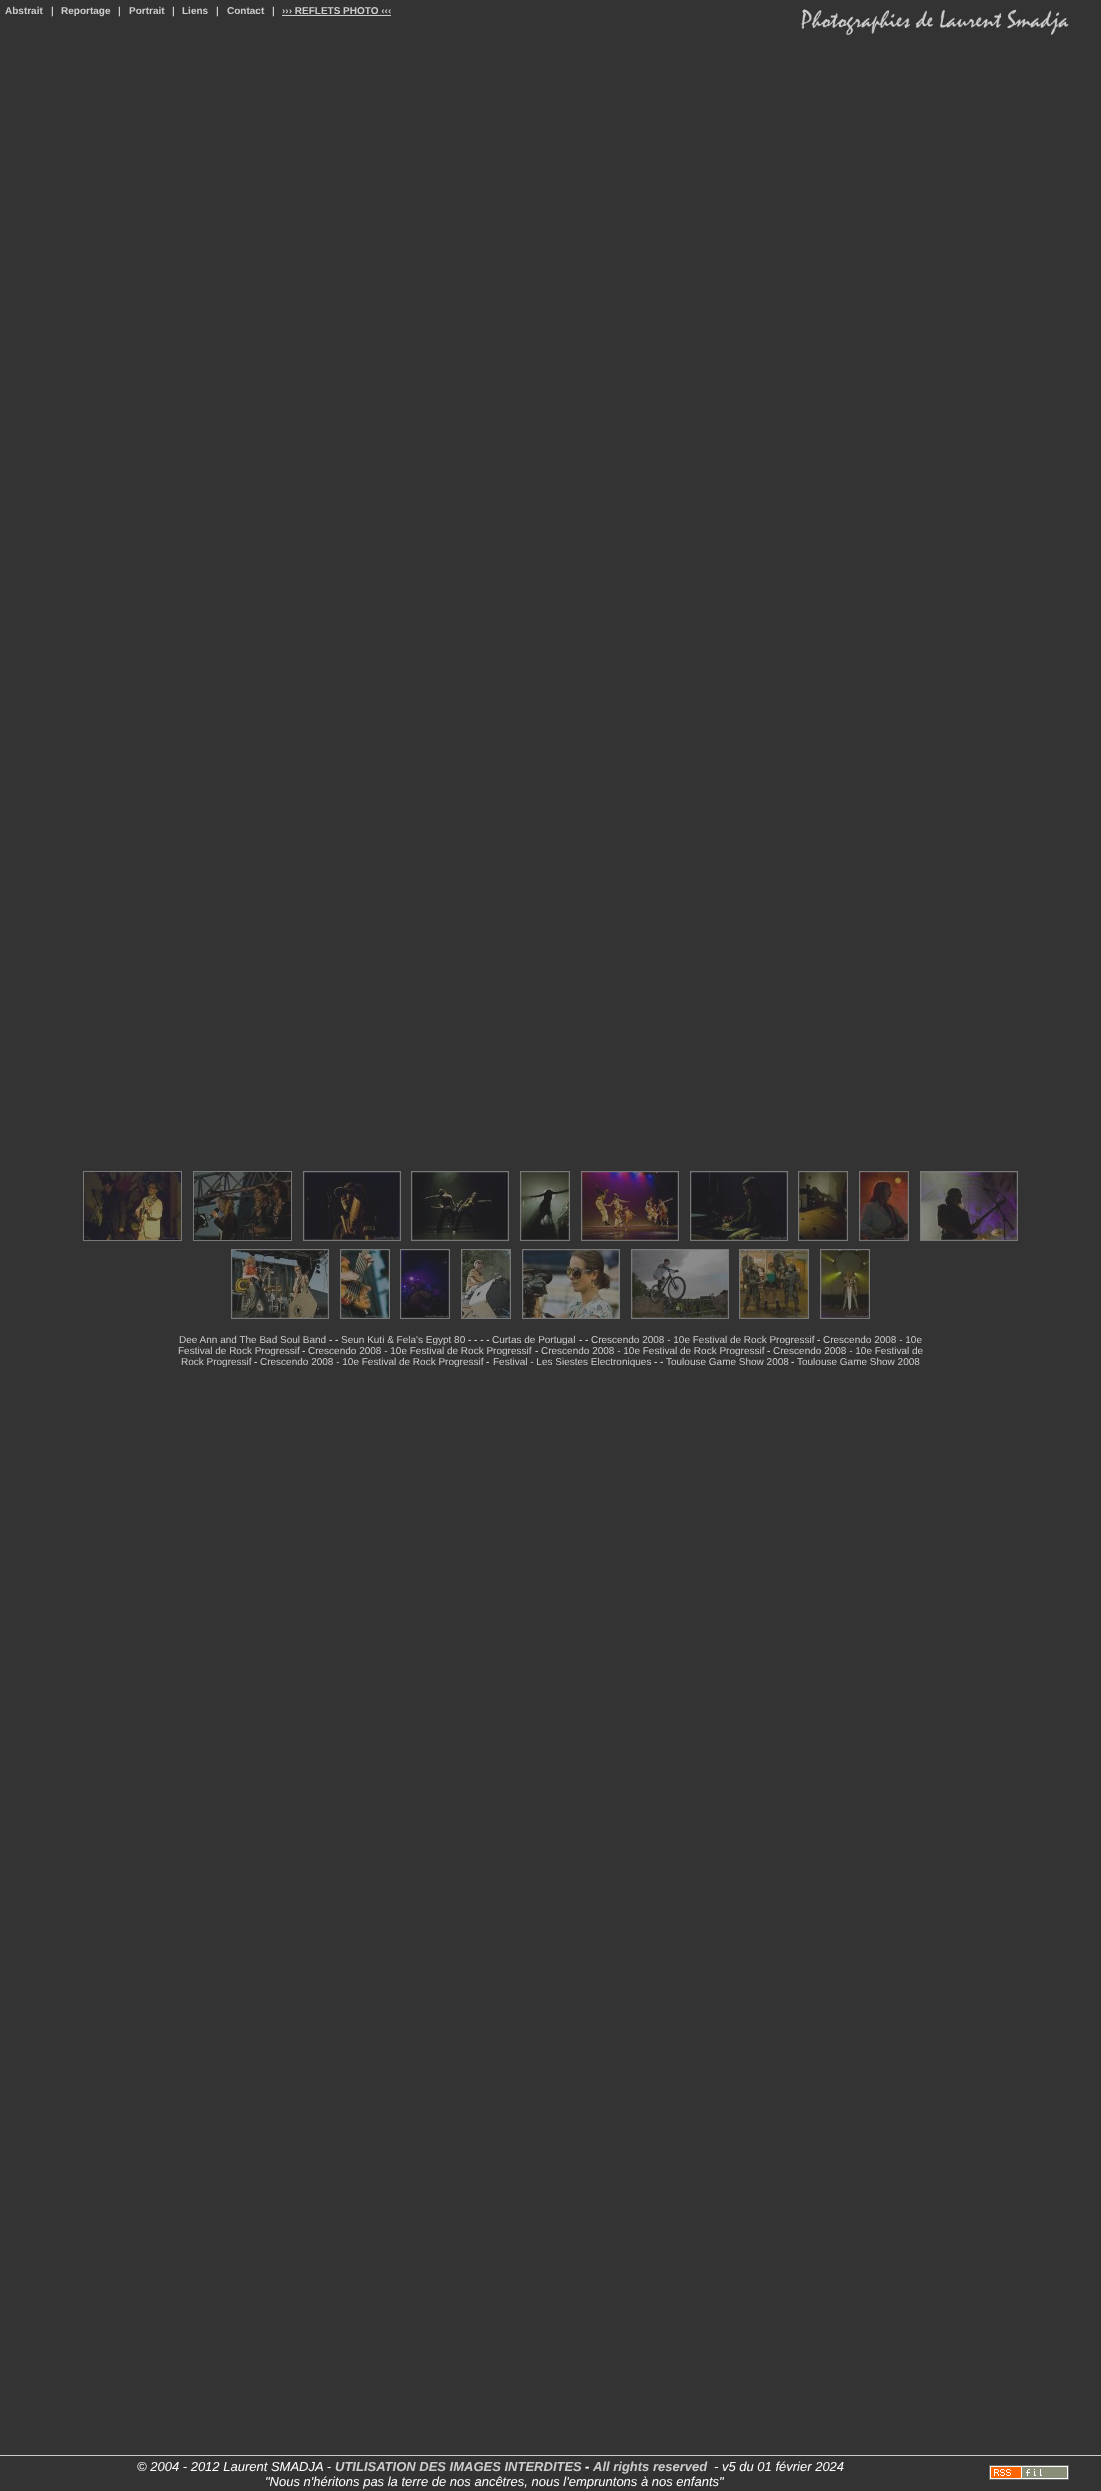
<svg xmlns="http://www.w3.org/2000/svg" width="1101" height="2491">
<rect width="100%" height="100%" fill="#333"/>
<text x="5" y="14" style="font-family:Liberation Sans;font-size:10px;font-weight:bold;fill:#ccc">Abstrait</text>
<text x="51" y="14" style="font-family:Liberation Sans;font-size:10px;fill:#fff">|</text>
<text x="61" y="14" style="font-family:Liberation Sans;font-size:10px;font-weight:bold;fill:#ccc">Reportage</text>
<text x="118" y="14" style="font-family:Liberation Sans;font-size:10px;fill:#fff">|</text>
<text x="129" y="14" style="font-family:Liberation Sans;font-size:10px;font-weight:bold;fill:#ccc">Portrait</text>
<text x="172" y="14" style="font-family:Liberation Sans;font-size:10px;fill:#fff">|</text>
<text x="182" y="14" style="font-family:Liberation Sans;font-size:10px;font-weight:bold;fill:#ccc">Liens</text>
<text x="216" y="14" style="font-family:Liberation Sans;font-size:10px;fill:#fff">|</text>
<text x="227" y="14" style="font-family:Liberation Sans;font-size:10px;font-weight:bold;fill:#ccc">Contact</text>
<text x="272" y="14" style="font-family:Liberation Sans;font-size:10px;fill:#fff">|</text>
<text x="282" y="14" style="font-family:Liberation Sans;font-size:10px;font-weight:bold;fill:#ccc">››› REFLETS PHOTO ‹‹‹</text>
<rect x="282" y="15" width="109" height="1" fill="#ccc"/>
<image x="801" y="9" width="268" height="26" href="media/1.png"/>
<rect x="83.5" y="1171.5" width="98" height="69" fill="none" stroke="#787878"/>
<rect x="193.5" y="1171.5" width="98" height="69" fill="none" stroke="#787878"/>
<rect x="303.5" y="1171.5" width="97" height="69" fill="none" stroke="#787878"/>
<rect x="411.5" y="1171.5" width="97" height="69" fill="none" stroke="#787878"/>
<rect x="520.5" y="1171.5" width="49" height="69" fill="none" stroke="#787878"/>
<rect x="581.5" y="1171.5" width="97" height="69" fill="none" stroke="#787878"/>
<rect x="690.5" y="1171.5" width="97" height="69" fill="none" stroke="#787878"/>
<rect x="798.5" y="1171.5" width="49" height="69" fill="none" stroke="#787878"/>
<rect x="859.5" y="1171.5" width="49" height="69" fill="none" stroke="#787878"/>
<rect x="920.5" y="1171.5" width="97" height="69" fill="none" stroke="#787878"/>
<image x="84" y="1172" width="97" height="68" href="media/2.png"/>
<image x="194" y="1172" width="97" height="68" href="media/3.png"/>
<image x="304" y="1172" width="96" height="68" href="media/4.png"/>
<image x="412" y="1172" width="96" height="68" href="media/5.png"/>
<image x="521" y="1172" width="48" height="68" href="media/6.png"/>
<image x="582" y="1172" width="96" height="68" href="media/7.png"/>
<image x="691" y="1172" width="96" height="68" href="media/8.png"/>
<image x="799" y="1172" width="48" height="68" href="media/9.png"/>
<image x="860" y="1172" width="48" height="68" href="media/10.png"/>
<image x="921" y="1172" width="96" height="68" href="media/11.png"/>
<rect x="231.5" y="1249.5" width="97" height="69" fill="none" stroke="#787878"/>
<rect x="340.5" y="1249.5" width="49" height="69" fill="none" stroke="#787878"/>
<rect x="400.5" y="1249.5" width="49" height="69" fill="none" stroke="#787878"/>
<rect x="461.5" y="1249.5" width="49" height="69" fill="none" stroke="#787878"/>
<rect x="522.5" y="1249.5" width="97" height="69" fill="none" stroke="#787878"/>
<rect x="631.5" y="1249.5" width="97" height="69" fill="none" stroke="#787878"/>
<rect x="739.5" y="1249.5" width="69" height="69" fill="none" stroke="#787878"/>
<rect x="820.5" y="1249.5" width="49" height="69" fill="none" stroke="#787878"/>
<image x="232" y="1250" width="96" height="68" href="media/12.png"/>
<image x="341" y="1250" width="48" height="68" href="media/13.png"/>
<image x="401" y="1250" width="48" height="68" href="media/14.png"/>
<image x="462" y="1250" width="48" height="68" href="media/15.png"/>
<image x="523" y="1250" width="96" height="68" href="media/16.png"/>
<image x="632" y="1250" width="96" height="68" href="media/17.png"/>
<image x="740" y="1250" width="68" height="68" href="media/18.png"/>
<image x="821" y="1250" width="48" height="68" href="media/19.png"/>
<text x="179" y="1343" style="font-family:Liberation Sans;font-size:10px;fill:#ccc">Dee Ann and The Bad Soul Band</text>
<text x="329" y="1343" style="font-family:Liberation Sans;font-size:10px;fill:#fff">- -</text>
<text x="341" y="1343" style="font-family:Liberation Sans;font-size:10px;fill:#ccc">Seun Kuti &amp; Fela's Egypt 80</text>
<text x="468" y="1343" style="font-family:Liberation Sans;font-size:10px;fill:#fff">- - - -</text>
<text x="492" y="1343" style="font-family:Liberation Sans;font-size:10px;fill:#ccc">Curtas de Portugal</text>
<text x="579" y="1343" style="font-family:Liberation Sans;font-size:10px;fill:#fff">- -</text>
<text x="591" y="1343" style="font-family:Liberation Sans;font-size:10px;fill:#ccc">Crescendo 2008 - 10e Festival de Rock Progressif</text>
<text x="817" y="1343" style="font-family:Liberation Sans;font-size:10px;fill:#fff">-</text>
<text x="823" y="1343" style="font-family:Liberation Sans;font-size:10px;fill:#ccc">Crescendo 2008 - 10e</text>
<text x="178" y="1354" style="font-family:Liberation Sans;font-size:10px;fill:#ccc">Festival de Rock Progressif</text>
<text x="302" y="1354" style="font-family:Liberation Sans;font-size:10px;fill:#fff">-</text>
<text x="308" y="1354" style="font-family:Liberation Sans;font-size:10px;fill:#ccc">Crescendo 2008 - 10e Festival de Rock Progressif</text>
<text x="535" y="1354" style="font-family:Liberation Sans;font-size:10px;fill:#fff">-</text>
<text x="541" y="1354" style="font-family:Liberation Sans;font-size:10px;fill:#ccc">Crescendo 2008 - 10e Festival de Rock Progressif</text>
<text x="767" y="1354" style="font-family:Liberation Sans;font-size:10px;fill:#fff">-</text>
<text x="773" y="1354" style="font-family:Liberation Sans;font-size:10px;fill:#ccc">Crescendo 2008 - 10e Festival de</text>
<text x="181" y="1365" style="font-family:Liberation Sans;font-size:10px;fill:#ccc">Rock Progressif</text>
<text x="254" y="1365" style="font-family:Liberation Sans;font-size:10px;fill:#fff">-</text>
<text x="260" y="1365" style="font-family:Liberation Sans;font-size:10px;fill:#ccc">Crescendo 2008 - 10e Festival de Rock Progressif</text>
<text x="486" y="1365" style="font-family:Liberation Sans;font-size:10px;fill:#fff">-</text>
<text x="493" y="1365" style="font-family:Liberation Sans;font-size:10px;fill:#ccc">Festival - Les Siestes Electroniques</text>
<text x="654" y="1365" style="font-family:Liberation Sans;font-size:10px;fill:#fff">- -</text>
<text x="666" y="1365" style="font-family:Liberation Sans;font-size:10px;fill:#ccc">Toulouse Game Show 2008</text>
<text x="791" y="1365" style="font-family:Liberation Sans;font-size:10px;fill:#fff">-</text>
<text x="797" y="1365" style="font-family:Liberation Sans;font-size:10px;fill:#ccc">Toulouse Game Show 2008</text>
<rect y="2455" width="1101" height="1" fill="#ccc"/>
<text x="137" y="2471" style="font-family:Liberation Sans;font-size:13px;font-style:italic;fill:#fff">© 2004 - 2012 Laurent SMADJA -</text>
<text x="335" y="2471" style="font-family:Liberation Sans;font-size:13px;font-weight:bold;font-style:italic;fill:#ccc">UTILISATION DES IMAGES INTERDITES</text>
<text x="585" y="2471" style="font-family:Liberation Sans;font-size:13px;font-weight:bold;font-style:italic;fill:#fff">-</text>
<text x="593" y="2471" style="font-family:Liberation Sans;font-size:13px;font-weight:bold;font-style:italic;fill:#ccc">All rights reserved</text>
<text x="714" y="2471" style="font-family:Liberation Sans;font-size:13px;font-style:italic;fill:#fff">- v5 du 01 février 2024</text>
<text x="265" y="2486" style="font-family:Liberation Sans;font-size:13px;font-style:italic;fill:#fff">"Nous n'héritons pas la terre de nos ancêtres, nous l'empruntons à nos enfants"</text>
<image x="989" y="2465" width="80" height="15" href="media/20.png"/>
</svg>
